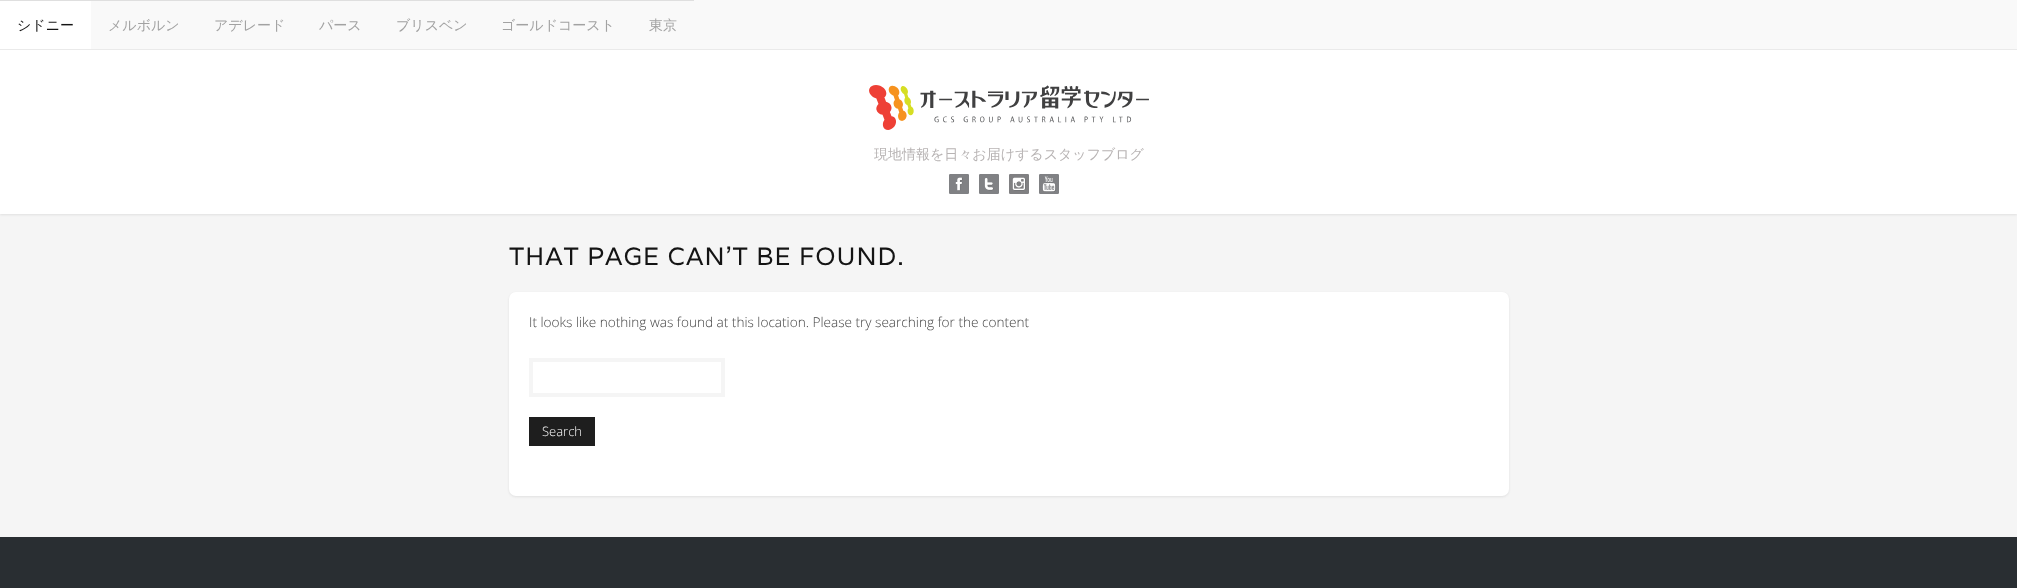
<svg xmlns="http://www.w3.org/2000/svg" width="2017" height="588">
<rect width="100%" height="100%" fill="#f5f5f5"/>
<rect y="51" width="2017" height="164" fill="#3232321a" filter="blur(1px)"/>
<rect x="91" width="1926" height="49" fill="#f9f9f9"/>
<rect y="49" width="2017" height="1" fill="#eaeaea"/>
<rect width="694" height="1" fill="#dfdfdf"/>
<rect y="1" width="91" height="48" fill="#fff"/>
<text x="17" y="30" style="font-family:WenQuanYi Zen Hei;font-size:14px;font-weight:500;fill:#141414">シドニー</text>
<text x="108" y="30" style="font-family:WenQuanYi Zen Hei;font-size:14px;font-weight:500;fill:#a2a2a2">メルボルン</text>
<text x="214" y="30" style="font-family:WenQuanYi Zen Hei;font-size:14px;font-weight:500;fill:#a2a2a2">アデレード</text>
<text x="319" y="30" style="font-family:WenQuanYi Zen Hei;font-size:14px;font-weight:500;fill:#a2a2a2">パース</text>
<text x="396" y="30" style="font-family:WenQuanYi Zen Hei;font-size:14px;font-weight:500;fill:#a2a2a2">ブリスベン</text>
<text x="501" y="30" style="font-family:WenQuanYi Zen Hei;font-size:14px;font-weight:500;fill:#a2a2a2">ゴールドコースト</text>
<text x="649" y="30" style="font-family:WenQuanYi Zen Hei;font-size:14px;font-weight:500;fill:#a2a2a2">東京</text>
<rect y="50" width="2017" height="164" fill="#fff"/>
<image x="869" y="85" width="280" height="45" href="media/1.png"/>
<text x="874" y="159" style="font-family:WenQuanYi Zen Hei;font-size:14px;font-weight:500;fill:#b8b4b4">現地情報を日々お届けするスタッフブログ</text>
<image x="949" y="174" width="20" height="20" href="media/2.png"/>
<image x="979" y="174" width="20" height="20" href="media/3.png"/>
<image x="1009" y="174" width="20" height="20" href="media/4.png"/>
<image x="1039" y="174" width="20" height="20" href="media/5.png"/>
<text x="509" y="265" style="font-family:Varela;font-size:25px;letter-spacing:1px;fill:#141414">THAT PAGE CAN’T BE FOUND.</text>
<rect x="509" y="293" width="1000" height="204" rx="7" fill="#3232321a" filter="blur(1px)"/>
<rect x="509" y="292" width="1000" height="204" rx="7" fill="#fff"/>
<text x="529" y="327" style="font-family:Open Sans;font-size:13.6px;font-weight:300;fill:#444">It looks like nothing was found at this location. Please try searching for the content</text>
<rect x="531" y="360" width="192" height="35" fill="none" stroke="#f5f5f5" stroke-width="4"/>
<rect x="529" y="417" width="66" height="29" fill="#1e1e1e"/>
<text x="542" y="436" style="font-family:Open Sans;font-size:13px;font-weight:300;fill:#fff">Search</text>
<rect y="537" width="2017" height="51" fill="#292e32"/>
</svg>
